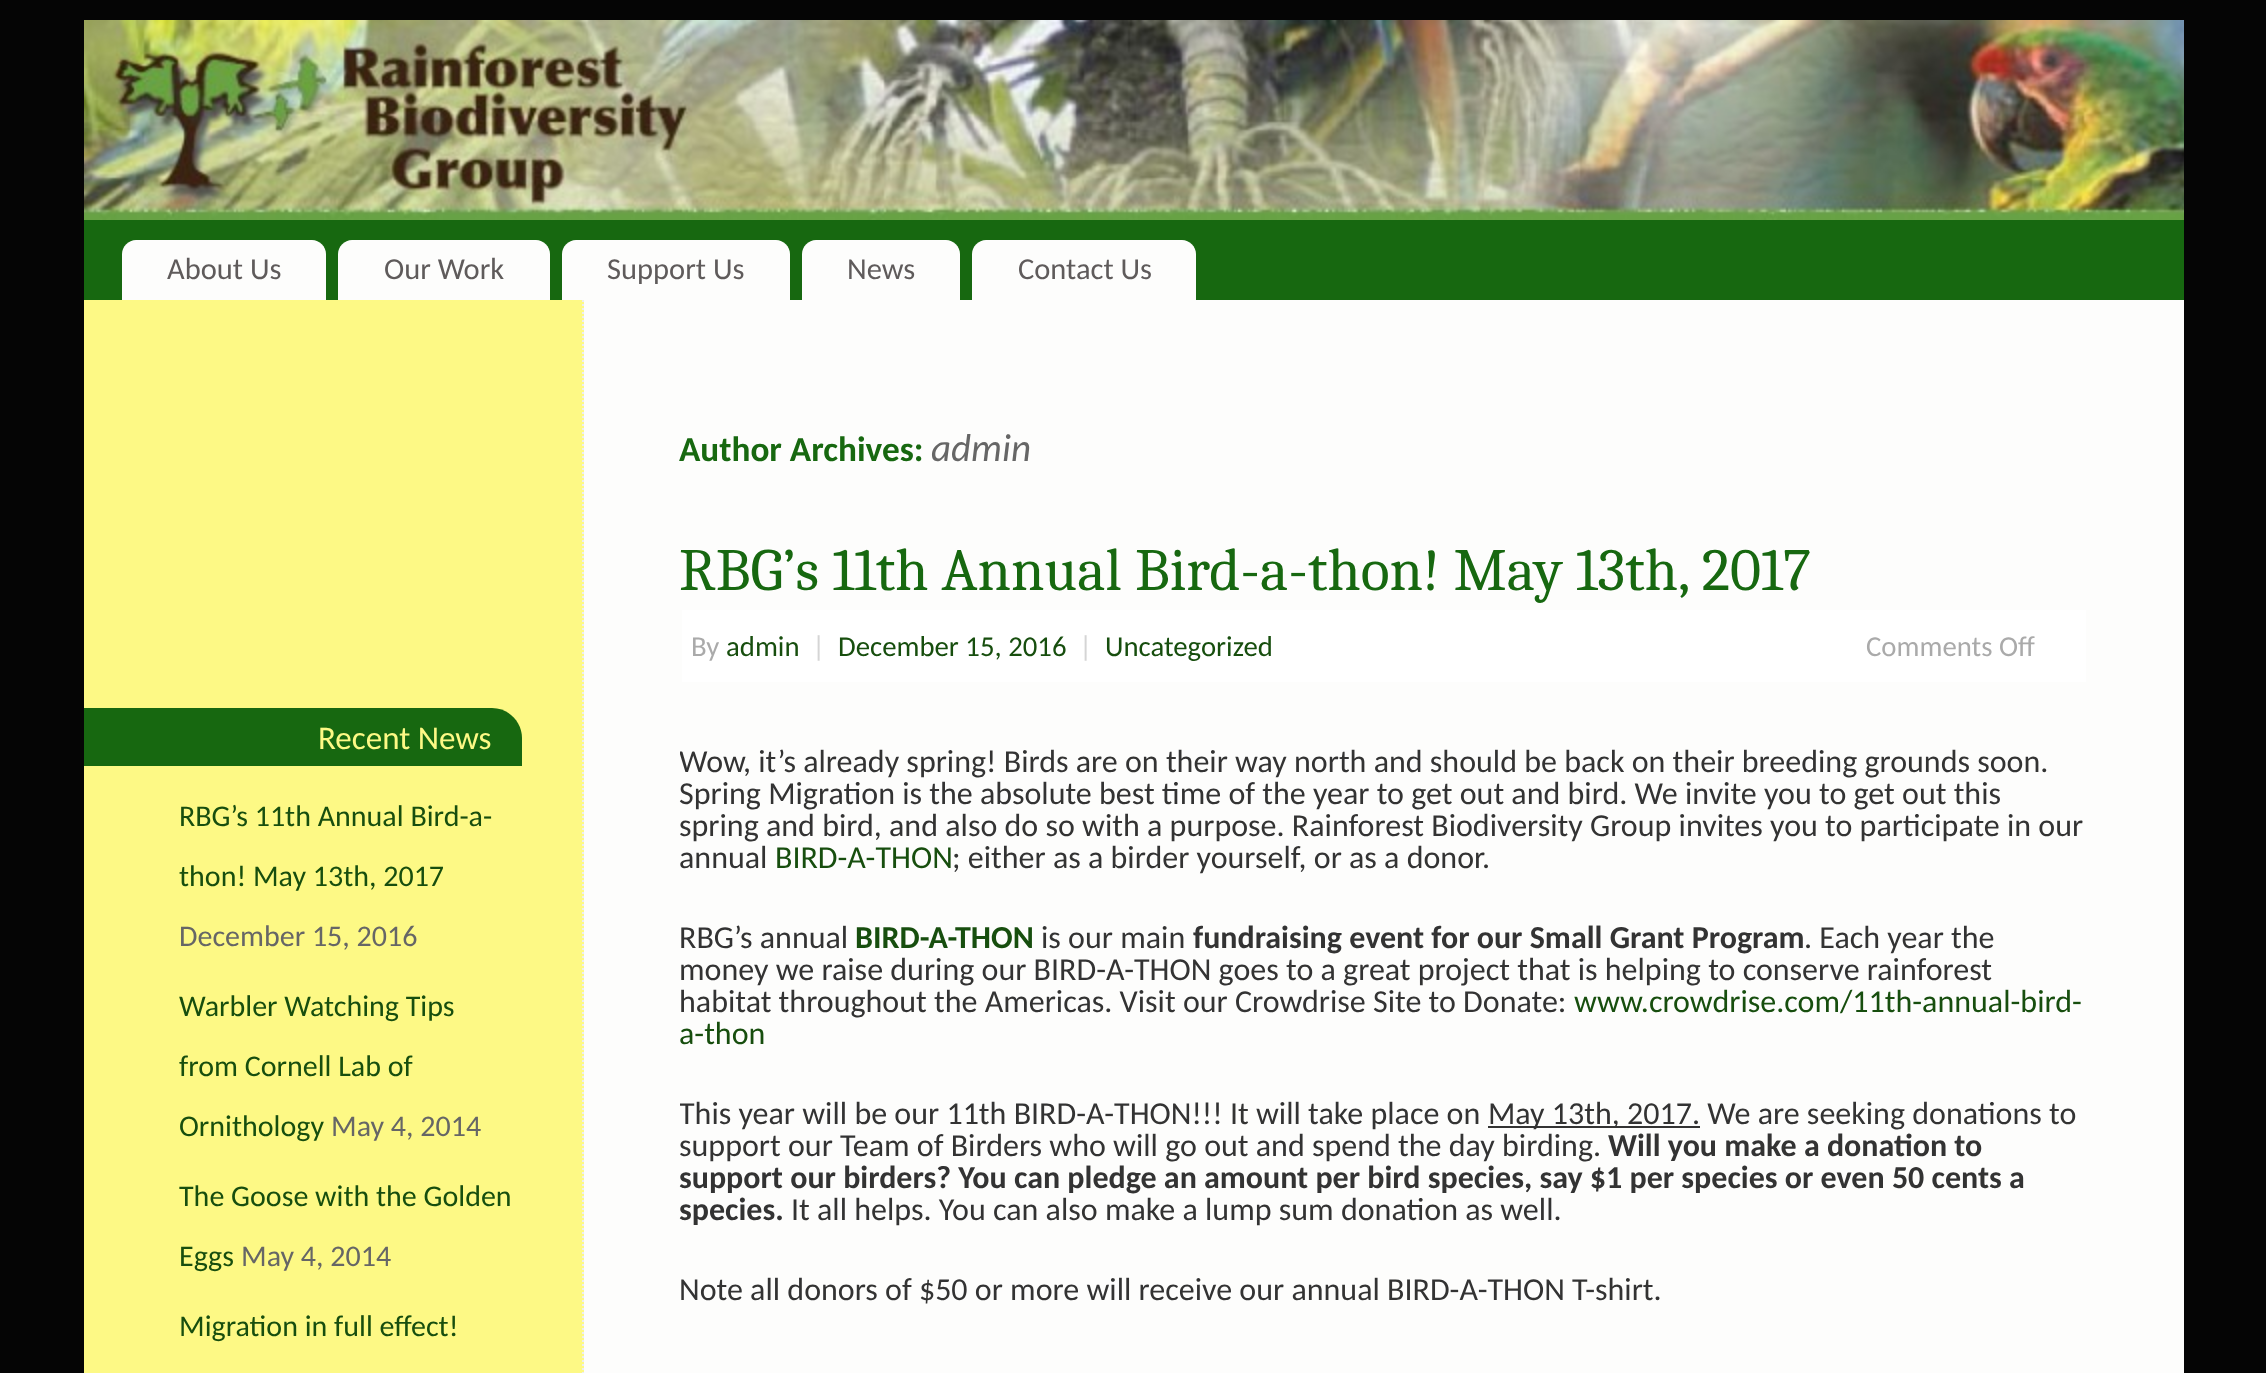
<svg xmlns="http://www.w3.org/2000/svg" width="2266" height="1373">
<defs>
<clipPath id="clip1"><rect x="680" y="532" width="1408" height="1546"/></clipPath>
</defs>
<rect width="100%" height="100%" fill="#050505"/>
<rect x="84" y="220" width="2100" height="80" fill="#176810"/>
<image x="84" y="20" width="2100" height="200" href="media/1.png"/>
<path d="M136 240h176c7.5 0 14 6.5 14 14v46h-204v-46c0-7.5 6.5-14 14-14z" fill="#fdfdfc"/>
<text x="167" y="279" style="font-family:Carlito;font-size:30.5px;fill:#5f5b5b">About Us</text>
<path d="M352 240h184c7.5 0 14 6.5 14 14v46h-212v-46c0-7.5 6.5-14 14-14z" fill="#fdfdfc"/>
<text x="384" y="279" style="font-family:Carlito;font-size:30.5px;fill:#5f5b5b">Our Work</text>
<path d="M576 240h200c7.5 0 14 6.5 14 14v46h-228v-46c0-7.5 6.5-14 14-14z" fill="#fdfdfc"/>
<text x="607" y="279" style="font-family:Carlito;font-size:30.5px;fill:#5f5b5b">Support Us</text>
<path d="M816 240h130c7.5 0 14 6.5 14 14v46h-158v-46c0-7.5 6.5-14 14-14z" fill="#fdfdfc"/>
<text x="847" y="279" style="font-family:Carlito;font-size:30.5px;fill:#5f5b5b">News</text>
<path d="M986 240h196c7.5 0 14 6.5 14 14v46h-224v-46c0-7.5 6.5-14 14-14z" fill="#fdfdfc"/>
<text x="1018" y="279" style="font-family:Carlito;font-size:30.5px;fill:#5f5b5b">Contact Us</text>
<rect x="584" y="300" width="1600" height="1073" fill="#fdfdfc"/>
<rect x="84" y="300" width="500" height="1073" fill="#fdf985"/>
<path d="M583 300v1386" fill="none" stroke="#eee" stroke-width="2" stroke-dasharray="2 2"/>
<path d="M84 708h408c16.5 0 30 13.5 30 30v28h-438z" fill="#176810"/>
<text x="318" y="749" style="font-family:Carlito;font-size:33px;fill:#fdf985">Recent News</text>
<text x="179" y="826" style="font-family:Carlito;font-size:30px;fill:#174e0e">RBG’s 11th Annual Bird-a-</text>
<text x="179" y="886" style="font-family:Carlito;font-size:30px;fill:#174e0e">thon! May 13th, 2017</text>
<text x="179" y="946" style="font-family:Carlito;font-size:30px;fill:#666">December 15, 2016</text>
<text x="179" y="1016" style="font-family:Carlito;font-size:30px;fill:#174e0e">Warbler Watching Tips</text>
<text x="179" y="1076" style="font-family:Carlito;font-size:30px;fill:#174e0e">from Cornell Lab of</text>
<text x="179" y="1136" style="font-family:Carlito;font-size:30px;fill:#174e0e">Ornithology</text>
<text x="331" y="1136" style="font-family:Carlito;font-size:30px;fill:#666">May 4, 2014</text>
<text x="179" y="1206" style="font-family:Carlito;font-size:30px;fill:#174e0e">The Goose with the Golden</text>
<text x="179" y="1266" style="font-family:Carlito;font-size:30px;fill:#174e0e">Eggs</text>
<text x="241" y="1266" style="font-family:Carlito;font-size:30px;fill:#666">May 4, 2014</text>
<text x="179" y="1336" style="font-family:Carlito;font-size:30px;fill:#174e0e">Migration in full effect!</text>
<text x="679" y="461" style="font-family:Carlito;font-size:35.25px;font-weight:bold;fill:#176810">Author Archives:</text>
<text x="931" y="461" style="font-family:Carlito;font-size:39px;font-style:italic;fill:#666">admin</text>
<text x="679" y="590" style="font-family:Caladea;font-size:60px;fill:#176810">RBG’s 11th Annual Bird-a-thon! May 13th, 2017</text>
<rect x="682" y="610" width="1404" height="72" fill="#fff"/>
<text x="691" y="656" style="font-family:Carlito;font-size:28.75px;fill:#aaa">By</text>
<text x="726" y="656" style="font-family:Carlito;font-size:28.75px;fill:#174e0e">admin</text>
<text x="812" y="656" style="font-family:Carlito;font-size:28.75px;fill:#d5d5d5">|</text>
<text x="838" y="656" style="font-family:Carlito;font-size:28.75px;fill:#174e0e">December 15, 2016</text>
<text x="1079" y="656" style="font-family:Carlito;font-size:28.75px;fill:#d5d5d5">|</text>
<text x="1105" y="656" style="font-family:Carlito;font-size:28.75px;fill:#174e0e">Uncategorized</text>
<text x="1866" y="656" style="font-family:Carlito;font-size:28.75px;fill:#aaa">Comments Off</text>
<g clip-path="url(#clip1)">
<text x="679" y="772" style="font-family:Carlito;font-size:32px;fill:#333">Wow, it’s already spring! Birds are on their way north and should be back on their breeding grounds soon.</text>
</g>
<text x="679" y="804" style="font-family:Carlito;font-size:32px;fill:#333">Spring Migration is the absolute best time of the year to get out and bird. We invite you to get out this</text>
<text x="679" y="836" style="font-family:Carlito;font-size:32px;fill:#333">spring and bird, and also do so with a purpose. Rainforest Biodiversity Group invites you to participate in our</text>
<text x="679" y="868" style="font-family:Carlito;font-size:32px;fill:#333">annual</text>
<text x="775" y="868" style="font-family:Carlito;font-size:32px;fill:#174e0e">BIRD-A-THON</text>
<text x="952" y="868" style="font-family:Carlito;font-size:32px;fill:#333">; either as a birder yourself, or as a donor.</text>
<text x="679" y="948" style="font-family:Carlito;font-size:32px;fill:#333">RBG’s annual</text>
<text x="855" y="948" style="font-family:Carlito;font-size:32px;font-weight:bold;fill:#174e0e">BIRD-A-THON</text>
<text x="1041" y="948" style="font-family:Carlito;font-size:32px;fill:#333">is our main</text>
<text x="1193" y="948" style="font-family:Carlito;font-size:32px;font-weight:bold;fill:#333">fundraising event for our Small Grant Program</text>
<text x="1804" y="948" style="font-family:Carlito;font-size:32px;fill:#333">. Each year the</text>
<text x="679" y="980" style="font-family:Carlito;font-size:32px;fill:#333">money we raise during our BIRD-A-THON goes to a great project that is helping to conserve rainforest</text>
<text x="679" y="1012" style="font-family:Carlito;font-size:32px;fill:#333">habitat throughout the Americas. Visit our Crowdrise Site to Donate:</text>
<text x="1574" y="1012" style="font-family:Carlito;font-size:32px;fill:#174e0e">www.crowdrise.com/11th-annual-bird-</text>
<text x="679" y="1044" style="font-family:Carlito;font-size:32px;fill:#174e0e">a-thon</text>
<g clip-path="url(#clip1)">
<text x="679" y="1124" style="font-family:Carlito;font-size:32px;fill:#333">This year will be our 11th BIRD-A-THON!!! It will take place on</text>
</g>
<rect x="1488" y="1126" width="212" height="2" fill="#333"/>
<text x="1488" y="1124" style="font-family:Carlito;font-size:32px;fill:#333">May 13th, 2017. We are seeking donations to</text>
<text x="679" y="1156" style="font-family:Carlito;font-size:32px;fill:#333">support our Team of Birders who will go out and spend the day birding.</text>
<text x="1608" y="1156" style="font-family:Carlito;font-size:32px;font-weight:bold;fill:#333">Will you make a donation to</text>
<text x="679" y="1188" style="font-family:Carlito;font-size:32px;font-weight:bold;fill:#333">support our birders? You can pledge an amount per bird species, say $1 per species or even 50 cents a</text>
<text x="679" y="1220" style="font-family:Carlito;font-size:32px;font-weight:bold;fill:#333">species.</text>
<text x="791" y="1220" style="font-family:Carlito;font-size:32px;fill:#333">It all helps. You can also make a lump sum donation as well.</text>
<text x="679" y="1300" style="font-family:Carlito;font-size:32px;fill:#333">Note all donors of $50 or more will receive our annual BIRD-A-THON T-shirt.</text>
</svg>
